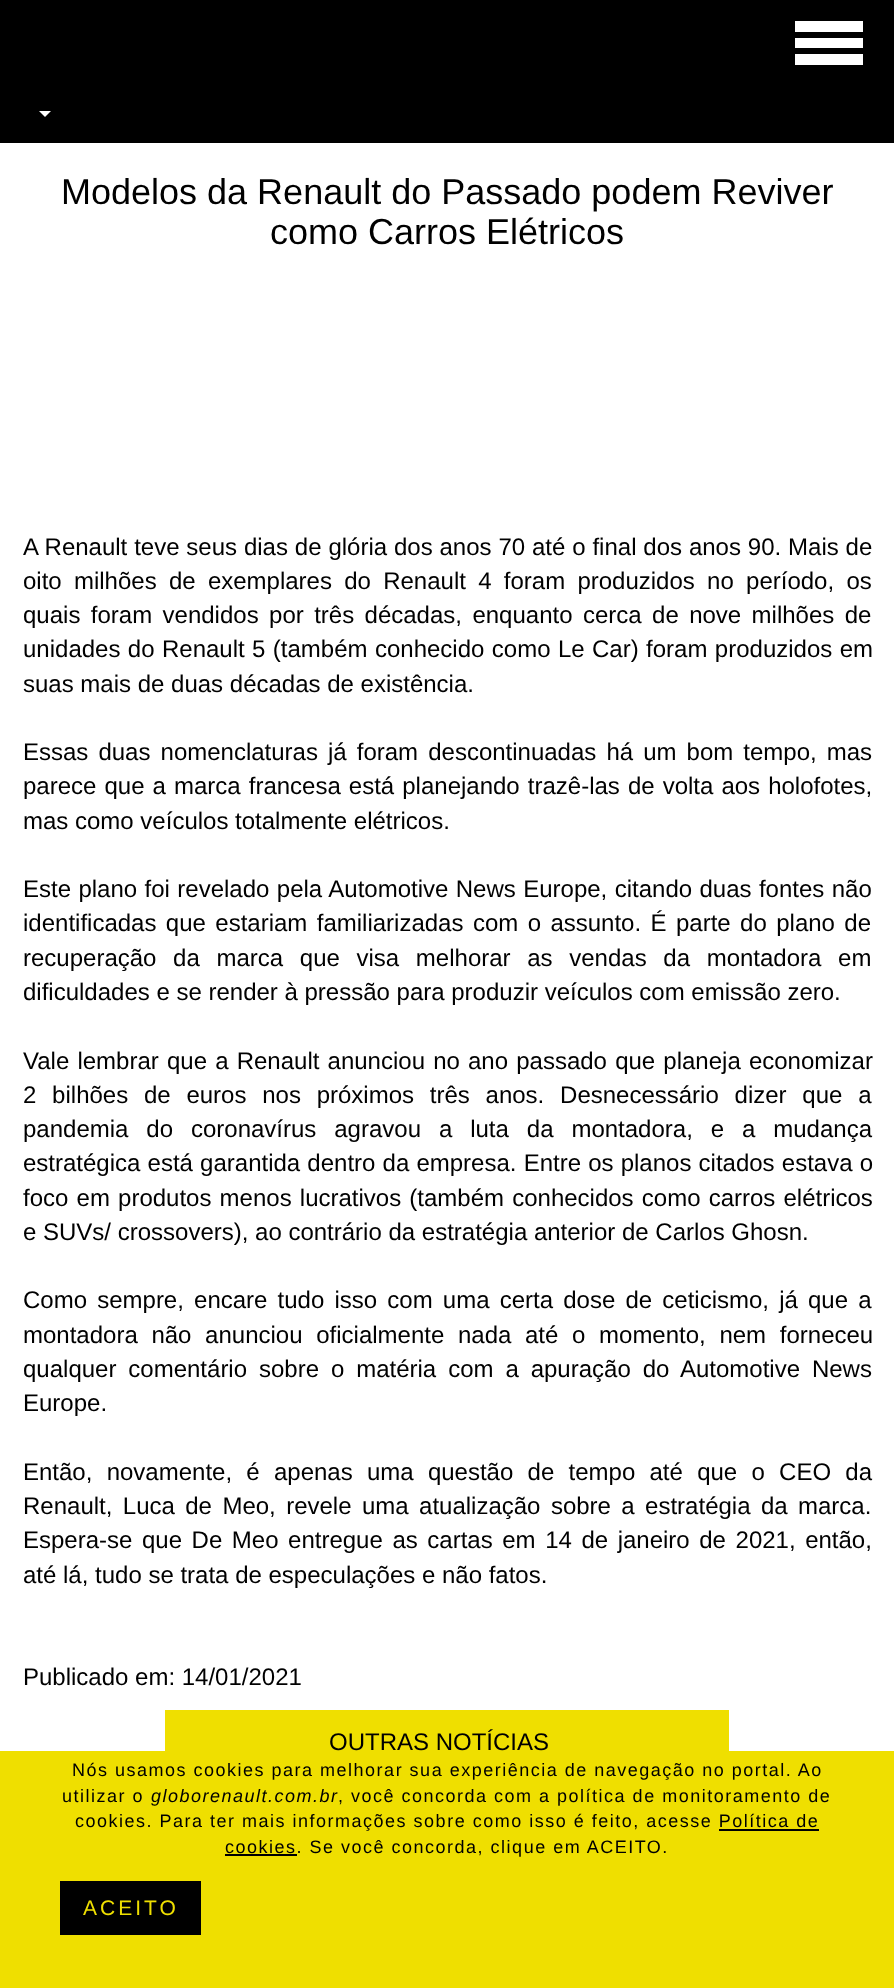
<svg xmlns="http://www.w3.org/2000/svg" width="894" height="1988">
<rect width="100%" height="100%" fill="#fff"/>
<rect width="894" height="143" fill="#000"/>
<rect x="795" y="21" width="68" height="11" fill="#fff"/>
<rect x="795" y="38" width="68" height="10" fill="#fff"/>
<rect x="795" y="54" width="68" height="11" fill="#fff"/>
<path d="M39 111h12l-6 6z" fill="#fff"/>
<text x="61" y="204" style="font-family:Liberation Sans;font-size:36px;fill:#000">Modelos da Renault do Passado podem Reviver</text>
<text x="270" y="244" style="font-family:Liberation Sans;font-size:36px;fill:#000">como Carros Elétricos</text>
<text x="23" y="555" word-spacing="0.2" style="font-family:Liberation Sans;font-size:24px;fill:#000">A Renault teve seus dias de glória dos anos 70 até o final dos anos 90. Mais de</text>
<text x="23" y="589" word-spacing="5.6" style="font-family:Liberation Sans;font-size:24px;fill:#000">oito milhões de exemplares do Renault 4 foram produzidos no período, os</text>
<text x="23" y="623" word-spacing="3.75" style="font-family:Liberation Sans;font-size:24px;fill:#000">quais foram vendidos por três décadas, enquanto cerca de nove milhões de</text>
<text x="23" y="657" word-spacing="0.75" style="font-family:Liberation Sans;font-size:24px;fill:#000">unidades do Renault 5 (também conhecido como Le Car) foram produzidos em</text>
<text x="23" y="692" style="font-family:Liberation Sans;font-size:24px;fill:#000">suas mais de duas décadas de existência.</text>
<text x="23" y="760" word-spacing="3.4" style="font-family:Liberation Sans;font-size:24px;fill:#000">Essas duas nomenclaturas já foram descontinuadas há um bom tempo, mas</text>
<text x="23" y="794" word-spacing="1.4" style="font-family:Liberation Sans;font-size:24px;fill:#000">parece que a marca francesa está planejando trazê-las de volta aos holofotes,</text>
<text x="23" y="829" style="font-family:Liberation Sans;font-size:24px;fill:#000">mas como veículos totalmente elétricos.</text>
<text x="23" y="897" word-spacing="0.75" style="font-family:Liberation Sans;font-size:24px;fill:#000">Este plano foi revelado pela Automotive News Europe, citando duas fontes não</text>
<text x="23" y="931" word-spacing="2.75" style="font-family:Liberation Sans;font-size:24px;fill:#000">identificadas que estariam familiarizadas com o assunto. É parte do plano de</text>
<text x="23" y="966" word-spacing="10" style="font-family:Liberation Sans;font-size:24px;fill:#000">recuperação da marca que visa melhorar as vendas da montadora em</text>
<text x="23" y="1000" style="font-family:Liberation Sans;font-size:24px;fill:#000">dificuldades e se render à pressão para produzir veículos com emissão zero.</text>
<text x="23" y="1069" word-spacing="1.5" style="font-family:Liberation Sans;font-size:24px;fill:#000">Vale lembrar que a Renault anunciou no ano passado que planeja economizar</text>
<text x="23" y="1103" word-spacing="9.1" style="font-family:Liberation Sans;font-size:24px;fill:#000">2 bilhões de euros nos próximos três anos. Desnecessário dizer que a</text>
<text x="23" y="1137" word-spacing="11.25" style="font-family:Liberation Sans;font-size:24px;fill:#000">pandemia do coronavírus agravou a luta da montadora, e a mudança</text>
<text x="23" y="1171" word-spacing="0.5" style="font-family:Liberation Sans;font-size:24px;fill:#000">estratégica está garantida dentro da empresa. Entre os planos citados estava o</text>
<text x="23" y="1206" word-spacing="1.5" style="font-family:Liberation Sans;font-size:24px;fill:#000">foco em produtos menos lucrativos (também conhecidos como carros elétricos</text>
<text x="23" y="1240" style="font-family:Liberation Sans;font-size:24px;fill:#000">e SUVs/ crossovers), ao contrário da estratégia anterior de Carlos Ghosn.</text>
<text x="23" y="1308" word-spacing="3.5" style="font-family:Liberation Sans;font-size:24px;fill:#000">Como sempre, encare tudo isso com uma certa dose de ceticismo, já que a</text>
<text x="23" y="1343" word-spacing="7" style="font-family:Liberation Sans;font-size:24px;fill:#000">montadora não anunciou oficialmente nada até o momento, nem forneceu</text>
<text x="23" y="1377" word-spacing="5.25" style="font-family:Liberation Sans;font-size:24px;fill:#000">qualquer comentário sobre o matéria com a apuração do Automotive News</text>
<text x="23" y="1411" style="font-family:Liberation Sans;font-size:24px;fill:#000">Europe.</text>
<text x="23" y="1480" word-spacing="7.6" style="font-family:Liberation Sans;font-size:24px;fill:#000">Então, novamente, é apenas uma questão de tempo até que o CEO da</text>
<text x="23" y="1514" word-spacing="3.75" style="font-family:Liberation Sans;font-size:24px;fill:#000">Renault, Luca de Meo, revele uma atualização sobre a estratégia da marca.</text>
<text x="23" y="1548" word-spacing="2.9" style="font-family:Liberation Sans;font-size:24px;fill:#000">Espera-se que De Meo entregue as cartas em 14 de janeiro de 2021, então,</text>
<text x="23" y="1583" style="font-family:Liberation Sans;font-size:24px;fill:#000">até lá, tudo se trata de especulações e não fatos.</text>
<text x="23" y="1685" style="font-family:Liberation Sans;font-size:24px;fill:#000">Publicado em: 14/01/2021</text>
<rect x="165" y="1710" width="564" height="41" fill="#efdf00"/>
<text x="329" y="1750" style="font-family:Liberation Sans;font-size:24px;fill:#000">OUTRAS NOTÍCIAS</text>
<rect y="1751" width="894" height="237" fill="#efdf00"/>
<text x="72" y="1776" style="font-family:Liberation Sans;font-size:18px;letter-spacing:1.5px;fill:#000">Nós usamos cookies para melhorar sua experiência de navegação no portal. Ao</text>
<text x="62" y="1802" style="font-family:Liberation Sans;font-size:18px;letter-spacing:1.5px;fill:#000">utilizar o</text>
<text x="151" y="1802" style="font-family:Liberation Sans;font-size:18px;font-style:italic;letter-spacing:1.5px;fill:#000">globorenault.com.br</text>
<text x="338" y="1802" style="font-family:Liberation Sans;font-size:18px;letter-spacing:1.5px;fill:#000">, você concorda com a política de monitoramento de</text>
<text x="75" y="1827" style="font-family:Liberation Sans;font-size:18px;letter-spacing:1.5px;fill:#000">cookies. Para ter mais informações sobre como isso é feito, acesse Política de</text>
<rect x="225" y="1854" width="72" height="2" fill="#000"/>
<text x="225" y="1853" style="font-family:Liberation Sans;font-size:18px;letter-spacing:1.5px;fill:#000">cookies. Se você concorda, clique em ACEITO.</text>
<rect x="719" y="1829" width="100" height="2" fill="#000"/>
<rect x="60" y="1881" width="141" height="54" fill="#000"/>
<text x="83" y="1915" style="font-family:Liberation Sans;font-size:21px;letter-spacing:3px;fill:#efdf00">ACEITO</text>
</svg>
